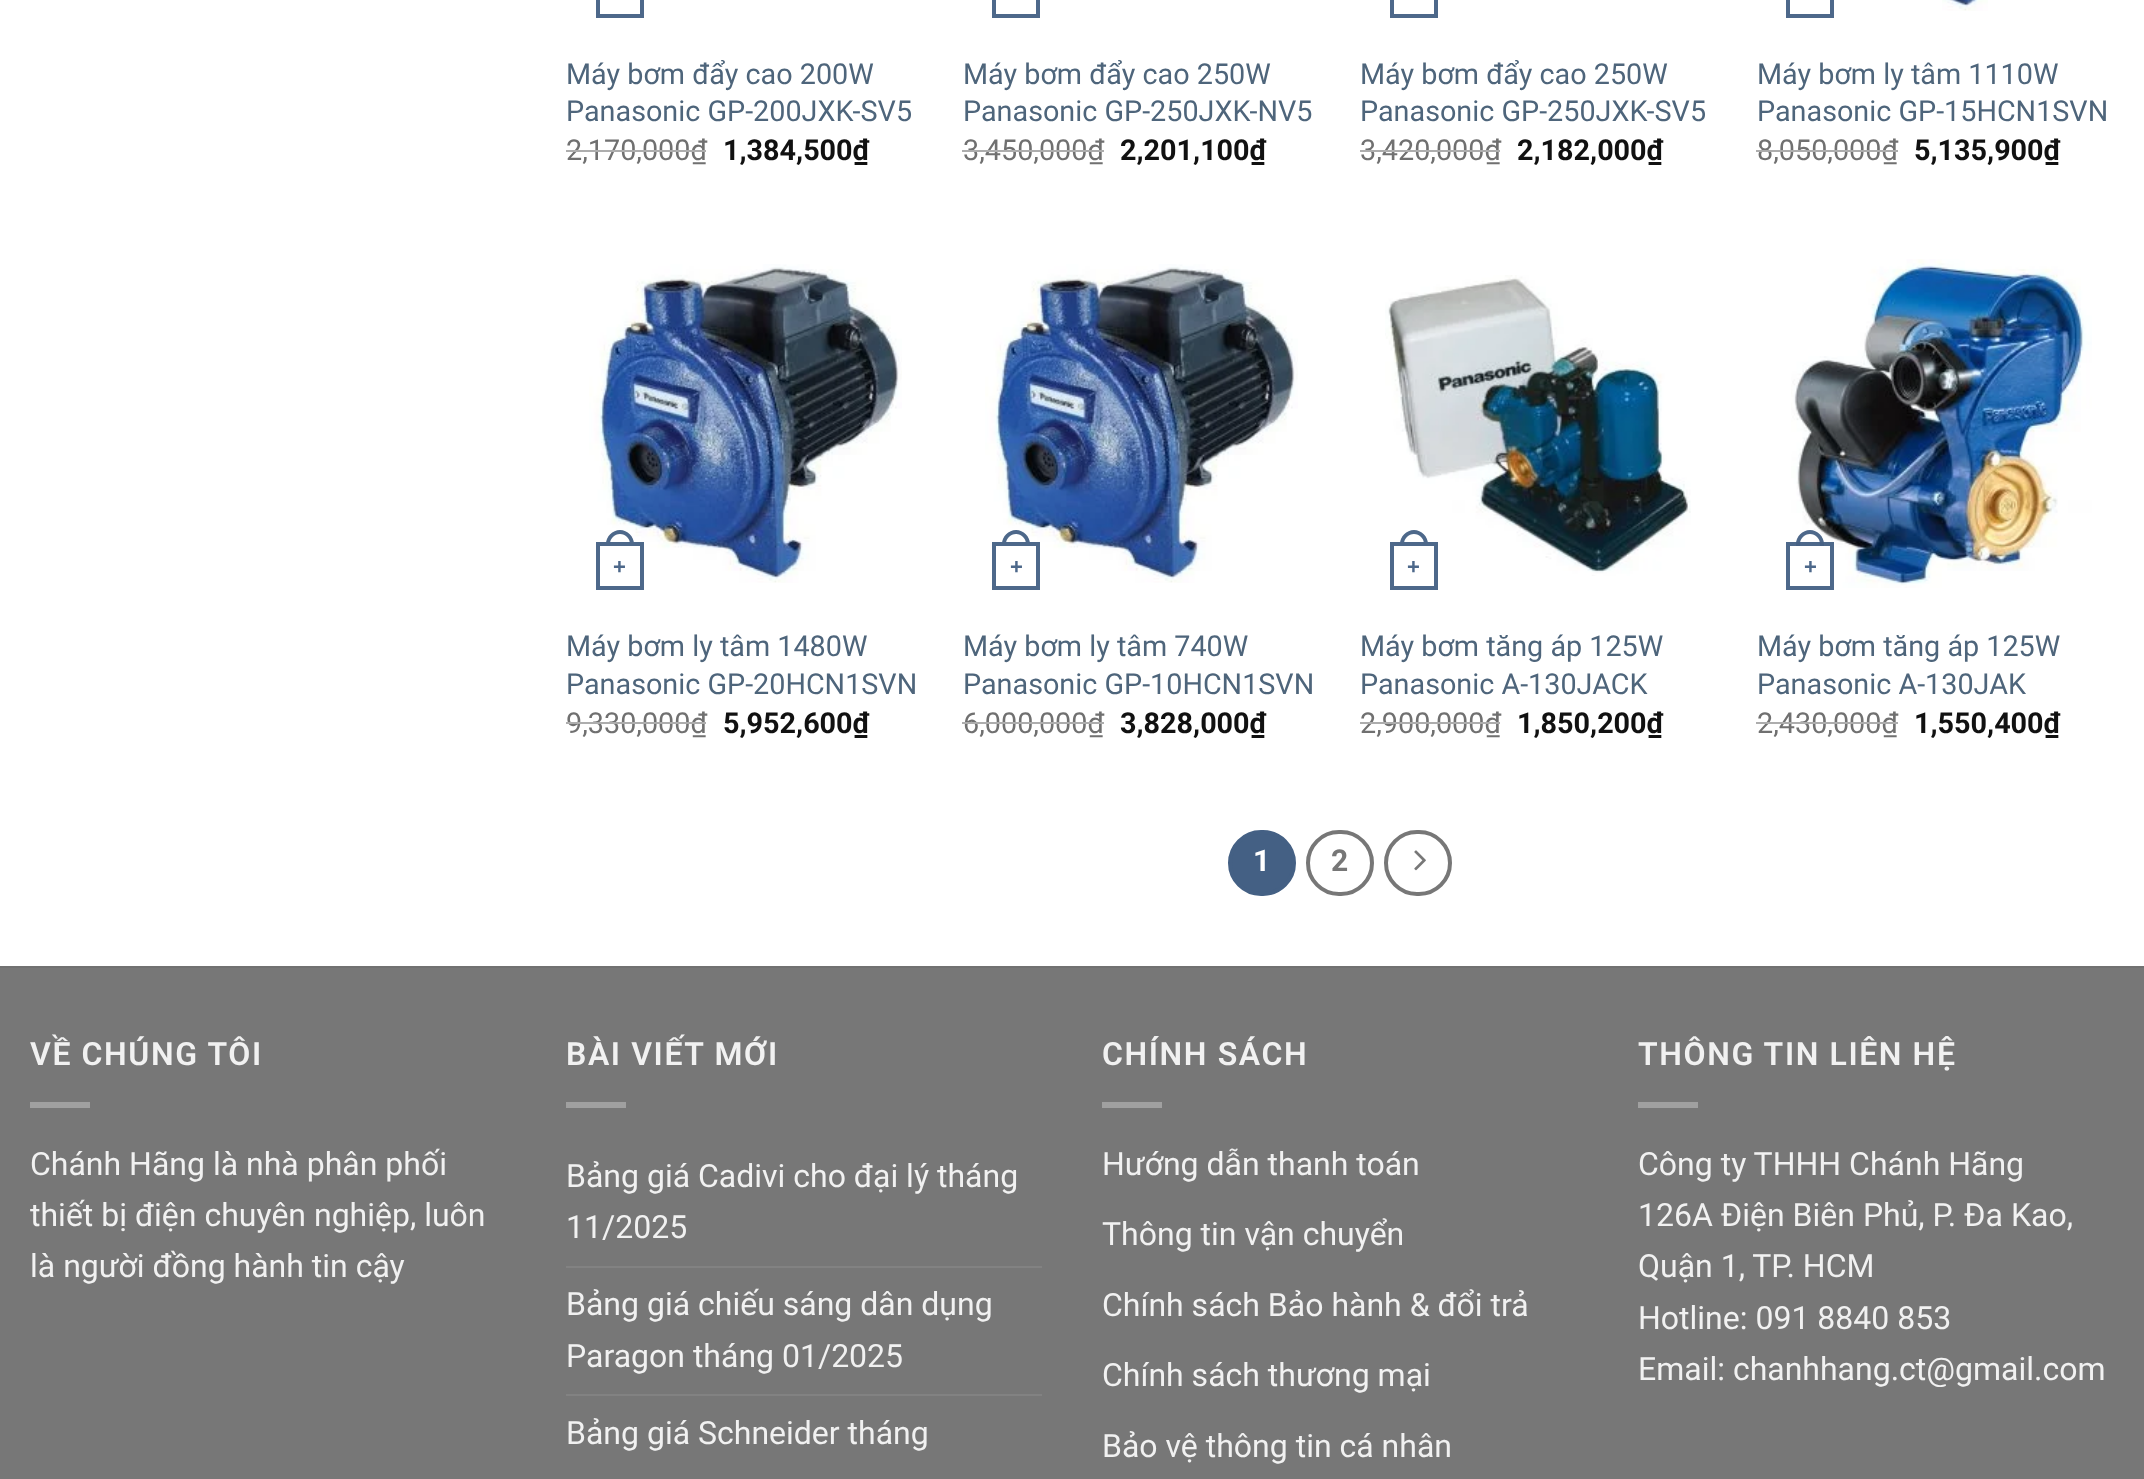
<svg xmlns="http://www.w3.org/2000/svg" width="2144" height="1479">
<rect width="100%" height="100%" fill="#fff"/>
<rect x="598" y="-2" width="44" height="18" fill="none" stroke="#4d688a" stroke-width="4"/>
<text x="566" y="84" style="font-family:Roboto;font-size:28.75px;fill:#4e657b">Máy bơm đẩy cao 200W</text>
<text x="566" y="121" style="font-family:Roboto;font-size:28.75px;fill:#4e657b">Panasonic GP-200JXK-SV5</text>
<text x="566" y="160" style="font-family:Roboto;font-size:28.75px;fill:#707070">2,170,000₫</text>
<rect x="566" y="150" width="140" height="2" fill="#adadad"/>
<text x="723" y="160" style="font-family:Roboto;font-size:28.75px;font-weight:bold;fill:#111">1,384,500₫</text>
<rect x="994" y="-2" width="44" height="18" fill="none" stroke="#4d688a" stroke-width="4"/>
<text x="963" y="84" style="font-family:Roboto;font-size:28.75px;fill:#4e657b">Máy bơm đẩy cao 250W</text>
<text x="963" y="121" style="font-family:Roboto;font-size:28.75px;fill:#4e657b">Panasonic GP-250JXK-NV5</text>
<text x="963" y="160" style="font-family:Roboto;font-size:28.75px;fill:#707070">3,450,000₫</text>
<rect x="962" y="150" width="142" height="2" fill="#adadad"/>
<text x="1120" y="160" style="font-family:Roboto;font-size:28.75px;font-weight:bold;fill:#111">2,201,100₫</text>
<rect x="1392" y="-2" width="44" height="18" fill="none" stroke="#4d688a" stroke-width="4"/>
<text x="1360" y="84" style="font-family:Roboto;font-size:28.75px;fill:#4e657b">Máy bơm đẩy cao 250W</text>
<text x="1360" y="121" style="font-family:Roboto;font-size:28.75px;fill:#4e657b">Panasonic GP-250JXK-SV5</text>
<text x="1360" y="160" style="font-family:Roboto;font-size:28.75px;fill:#707070">3,420,000₫</text>
<rect x="1360" y="150" width="140" height="2" fill="#adadad"/>
<text x="1517" y="160" style="font-family:Roboto;font-size:28.75px;font-weight:bold;fill:#111">2,182,000₫</text>
<rect x="1788" y="-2" width="44" height="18" fill="none" stroke="#4d688a" stroke-width="4"/>
<image x="1942" y="0" width="46" height="11" href="media/1.png"/>
<text x="1757" y="84" style="font-family:Roboto;font-size:28.75px;fill:#4e657b">Máy bơm ly tâm 1110W</text>
<text x="1757" y="121" style="font-family:Roboto;font-size:28.75px;fill:#4e657b">Panasonic GP-15HCN1SVN</text>
<text x="1757" y="160" style="font-family:Roboto;font-size:28.75px;fill:#707070">8,050,000₫</text>
<rect x="1756" y="150" width="142" height="2" fill="#adadad"/>
<text x="1914" y="160" style="font-family:Roboto;font-size:28.75px;font-weight:bold;fill:#111">5,135,900₫</text>
<image x="589" y="264" width="313" height="319" href="media/2.png"/>
<rect x="598" y="544" width="44" height="44" fill="none" stroke="#4d688a" stroke-width="4"/>
<path d="M620 530c7.5 0 14 6.5 14 14v2h-28v-2c0-7.5 6.5-14 14-14zm0 4c5.5 0 10 4.5 10 10v2h-20v-2c0-5.5 4.5-10 10-10z" fill="#4d688a" fill-rule="evenodd"/>
<text x="613" y="574" style="font-family:Liberation Sans;font-size:22px;font-weight:bold;fill:#4d688a">+</text>
<text x="566" y="656" style="font-family:Roboto;font-size:28.75px;fill:#4e657b">Máy bơm ly tâm 1480W</text>
<text x="566" y="694" style="font-family:Roboto;font-size:28.75px;fill:#4e657b">Panasonic GP-20HCN1SVN</text>
<text x="566" y="733" style="font-family:Roboto;font-size:28.75px;fill:#707070">9,330,000₫</text>
<rect x="566" y="722" width="140" height="2" fill="#adadad"/>
<text x="723" y="733" style="font-family:Roboto;font-size:28.75px;font-weight:bold;fill:#111">5,952,600₫</text>
<image x="985" y="264" width="313" height="319" href="media/3.png"/>
<rect x="994" y="544" width="44" height="44" fill="none" stroke="#4d688a" stroke-width="4"/>
<path d="M1016 530c7.5 0 14 6.5 14 14v2h-28v-2c0-7.5 6.5-14 14-14zm0 4c5.5 0 10 4.5 10 10v2h-20v-2c0-5.5 4.5-10 10-10z" fill="#4d688a" fill-rule="evenodd"/>
<text x="1010" y="574" style="font-family:Liberation Sans;font-size:22px;font-weight:bold;fill:#4d688a">+</text>
<text x="963" y="656" style="font-family:Roboto;font-size:28.75px;fill:#4e657b">Máy bơm ly tâm 740W</text>
<text x="963" y="694" style="font-family:Roboto;font-size:28.75px;fill:#4e657b">Panasonic GP-10HCN1SVN</text>
<text x="963" y="733" style="font-family:Roboto;font-size:28.75px;fill:#707070">6,000,000₫</text>
<rect x="962" y="722" width="142" height="2" fill="#adadad"/>
<text x="1120" y="733" style="font-family:Roboto;font-size:28.75px;font-weight:bold;fill:#111">3,828,000₫</text>
<image x="1385" y="275" width="306" height="301" href="media/4.png"/>
<rect x="1392" y="544" width="44" height="44" fill="none" stroke="#4d688a" stroke-width="4"/>
<path d="M1414 530c7.5 0 14 6.5 14 14v2h-28v-2c0-7.5 6.5-14 14-14zm0 4c5.5 0 10 4.5 10 10v2h-20v-2c0-5.5 4.5-10 10-10z" fill="#4d688a" fill-rule="evenodd"/>
<text x="1407" y="574" style="font-family:Liberation Sans;font-size:22px;font-weight:bold;fill:#4d688a">+</text>
<text x="1360" y="656" style="font-family:Roboto;font-size:28.75px;fill:#4e657b">Máy bơm tăng áp 125W</text>
<text x="1360" y="694" style="font-family:Roboto;font-size:28.75px;fill:#4e657b">Panasonic A-130JACK</text>
<text x="1360" y="733" style="font-family:Roboto;font-size:28.75px;fill:#707070">2,900,000₫</text>
<rect x="1360" y="722" width="140" height="2" fill="#adadad"/>
<text x="1517" y="733" style="font-family:Roboto;font-size:28.75px;font-weight:bold;fill:#111">1,850,200₫</text>
<image x="1791" y="259" width="301" height="329" href="media/5.png"/>
<rect x="1788" y="544" width="44" height="44" fill="none" stroke="#4d688a" stroke-width="4"/>
<path d="M1810 530c7.5 0 14 6.5 14 14v2h-28v-2c0-7.5 6.5-14 14-14zm0 4c5.5 0 10 4.5 10 10v2h-20v-2c0-5.5 4.5-10 10-10z" fill="#446084f2" fill-rule="evenodd"/>
<text x="1804" y="574" style="font-family:Liberation Sans;font-size:22px;font-weight:bold;fill:#4d688a">+</text>
<text x="1757" y="656" style="font-family:Roboto;font-size:28.75px;fill:#4e657b">Máy bơm tăng áp 125W</text>
<text x="1757" y="694" style="font-family:Roboto;font-size:28.75px;fill:#4e657b">Panasonic A-130JAK</text>
<text x="1757" y="733" style="font-family:Roboto;font-size:28.75px;fill:#707070">2,430,000₫</text>
<rect x="1756" y="722" width="142" height="2" fill="#adadad"/>
<text x="1914" y="733" style="font-family:Roboto;font-size:28.75px;font-weight:bold;fill:#111">1,550,400₫</text>
<rect x="1230" y="832" width="64" height="62" rx="31" fill="#446084" stroke="#446084" stroke-width="4"/>
<text x="1253" y="871" style="font-family:Roboto;font-size:30px;font-weight:bold;fill:#fff">1</text>
<rect x="1308" y="832" width="64" height="62" rx="31" fill="none" stroke="#777" stroke-width="4"/>
<text x="1331" y="871" style="font-family:Roboto;font-size:30px;font-weight:bold;fill:#777">2</text>
<rect x="1386" y="832" width="64" height="62" rx="31" fill="none" stroke="#777" stroke-width="4"/>
<image x="1414" y="850" width="12" height="21" href="media/6.png"/>
<rect y="968" width="2144" height="511" fill="#777"/>
<rect y="966" width="2144" height="2" fill="#717171"/>
<text x="30" y="1065" style="font-family:Roboto;font-size:32px;font-weight:600;letter-spacing:1.6px;fill:#f1f1f1">VỀ CHÚNG TÔI</text>
<rect x="30" y="1102" width="60" height="6" fill="#a0a0a0"/>
<text x="30" y="1175" style="font-family:Roboto;font-size:32px;fill:#f1f1f1">Chánh Hãng là nhà phân phối</text>
<text x="30" y="1226" style="font-family:Roboto;font-size:32px;fill:#f1f1f1">thiết bị điện chuyên nghiệp, luôn</text>
<text x="30" y="1277" style="font-family:Roboto;font-size:32px;fill:#f1f1f1">là người đồng hành tin cậy</text>
<text x="566" y="1065" style="font-family:Roboto;font-size:32px;font-weight:600;letter-spacing:1.6px;fill:#f1f1f1">BÀI VIẾT MỚI</text>
<rect x="566" y="1102" width="60" height="6" fill="#a0a0a0"/>
<text x="566" y="1187" style="font-family:Roboto;font-size:32px;fill:#f1f1f1">Bảng giá Cadivi cho đại lý tháng</text>
<text x="566" y="1238" style="font-family:Roboto;font-size:32px;fill:#f1f1f1">11/2025</text>
<rect x="566" y="1266" width="476" height="2" fill="#828282"/>
<text x="566" y="1315" style="font-family:Roboto;font-size:32px;fill:#f1f1f1">Bảng giá chiếu sáng dân dụng</text>
<text x="566" y="1367" style="font-family:Roboto;font-size:32px;fill:#f1f1f1">Paragon tháng 01/2025</text>
<rect x="566" y="1394" width="476" height="2" fill="#828282"/>
<text x="566" y="1444" style="font-family:Roboto;font-size:32px;fill:#f1f1f1">Bảng giá Schneider tháng</text>
<text x="1102" y="1065" style="font-family:Roboto;font-size:32px;font-weight:600;letter-spacing:1.6px;fill:#f1f1f1">CHÍNH SÁCH</text>
<rect x="1102" y="1102" width="60" height="6" fill="#a0a0a0"/>
<text x="1102" y="1175" style="font-family:Roboto;font-size:32px;fill:#f1f1f1">Hướng dẫn thanh toán</text>
<text x="1102" y="1245" style="font-family:Roboto;font-size:32px;fill:#f1f1f1">Thông tin vận chuyển</text>
<text x="1102" y="1316" style="font-family:Roboto;font-size:32px;fill:#f1f1f1">Chính sách Bảo hành &amp; đổi trả</text>
<text x="1102" y="1386" style="font-family:Roboto;font-size:32px;fill:#f1f1f1">Chính sách thương mại</text>
<text x="1102" y="1457" style="font-family:Roboto;font-size:32px;fill:#f1f1f1">Bảo vệ thông tin cá nhân</text>
<text x="1638" y="1065" style="font-family:Roboto;font-size:32px;font-weight:600;letter-spacing:1.6px;fill:#f1f1f1">THÔNG TIN LIÊN HỆ</text>
<rect x="1638" y="1102" width="60" height="6" fill="#a0a0a0"/>
<text x="1638" y="1175" style="font-family:Roboto;font-size:32px;fill:#f1f1f1">Công ty THHH Chánh Hãng</text>
<text x="1638" y="1226" style="font-family:Roboto;font-size:32px;fill:#f1f1f1">126A Điện Biên Phủ, P. Đa Kao,</text>
<text x="1638" y="1277" style="font-family:Roboto;font-size:32px;fill:#f1f1f1">Quận 1, TP. HCM</text>
<text x="1638" y="1329" style="font-family:Roboto;font-size:32px;fill:#f1f1f1">Hotline: 091 8840 853</text>
<text x="1638" y="1380" style="font-family:Roboto;font-size:32px;fill:#f1f1f1">Email: chanhhang.ct@gmail.com</text>
</svg>
